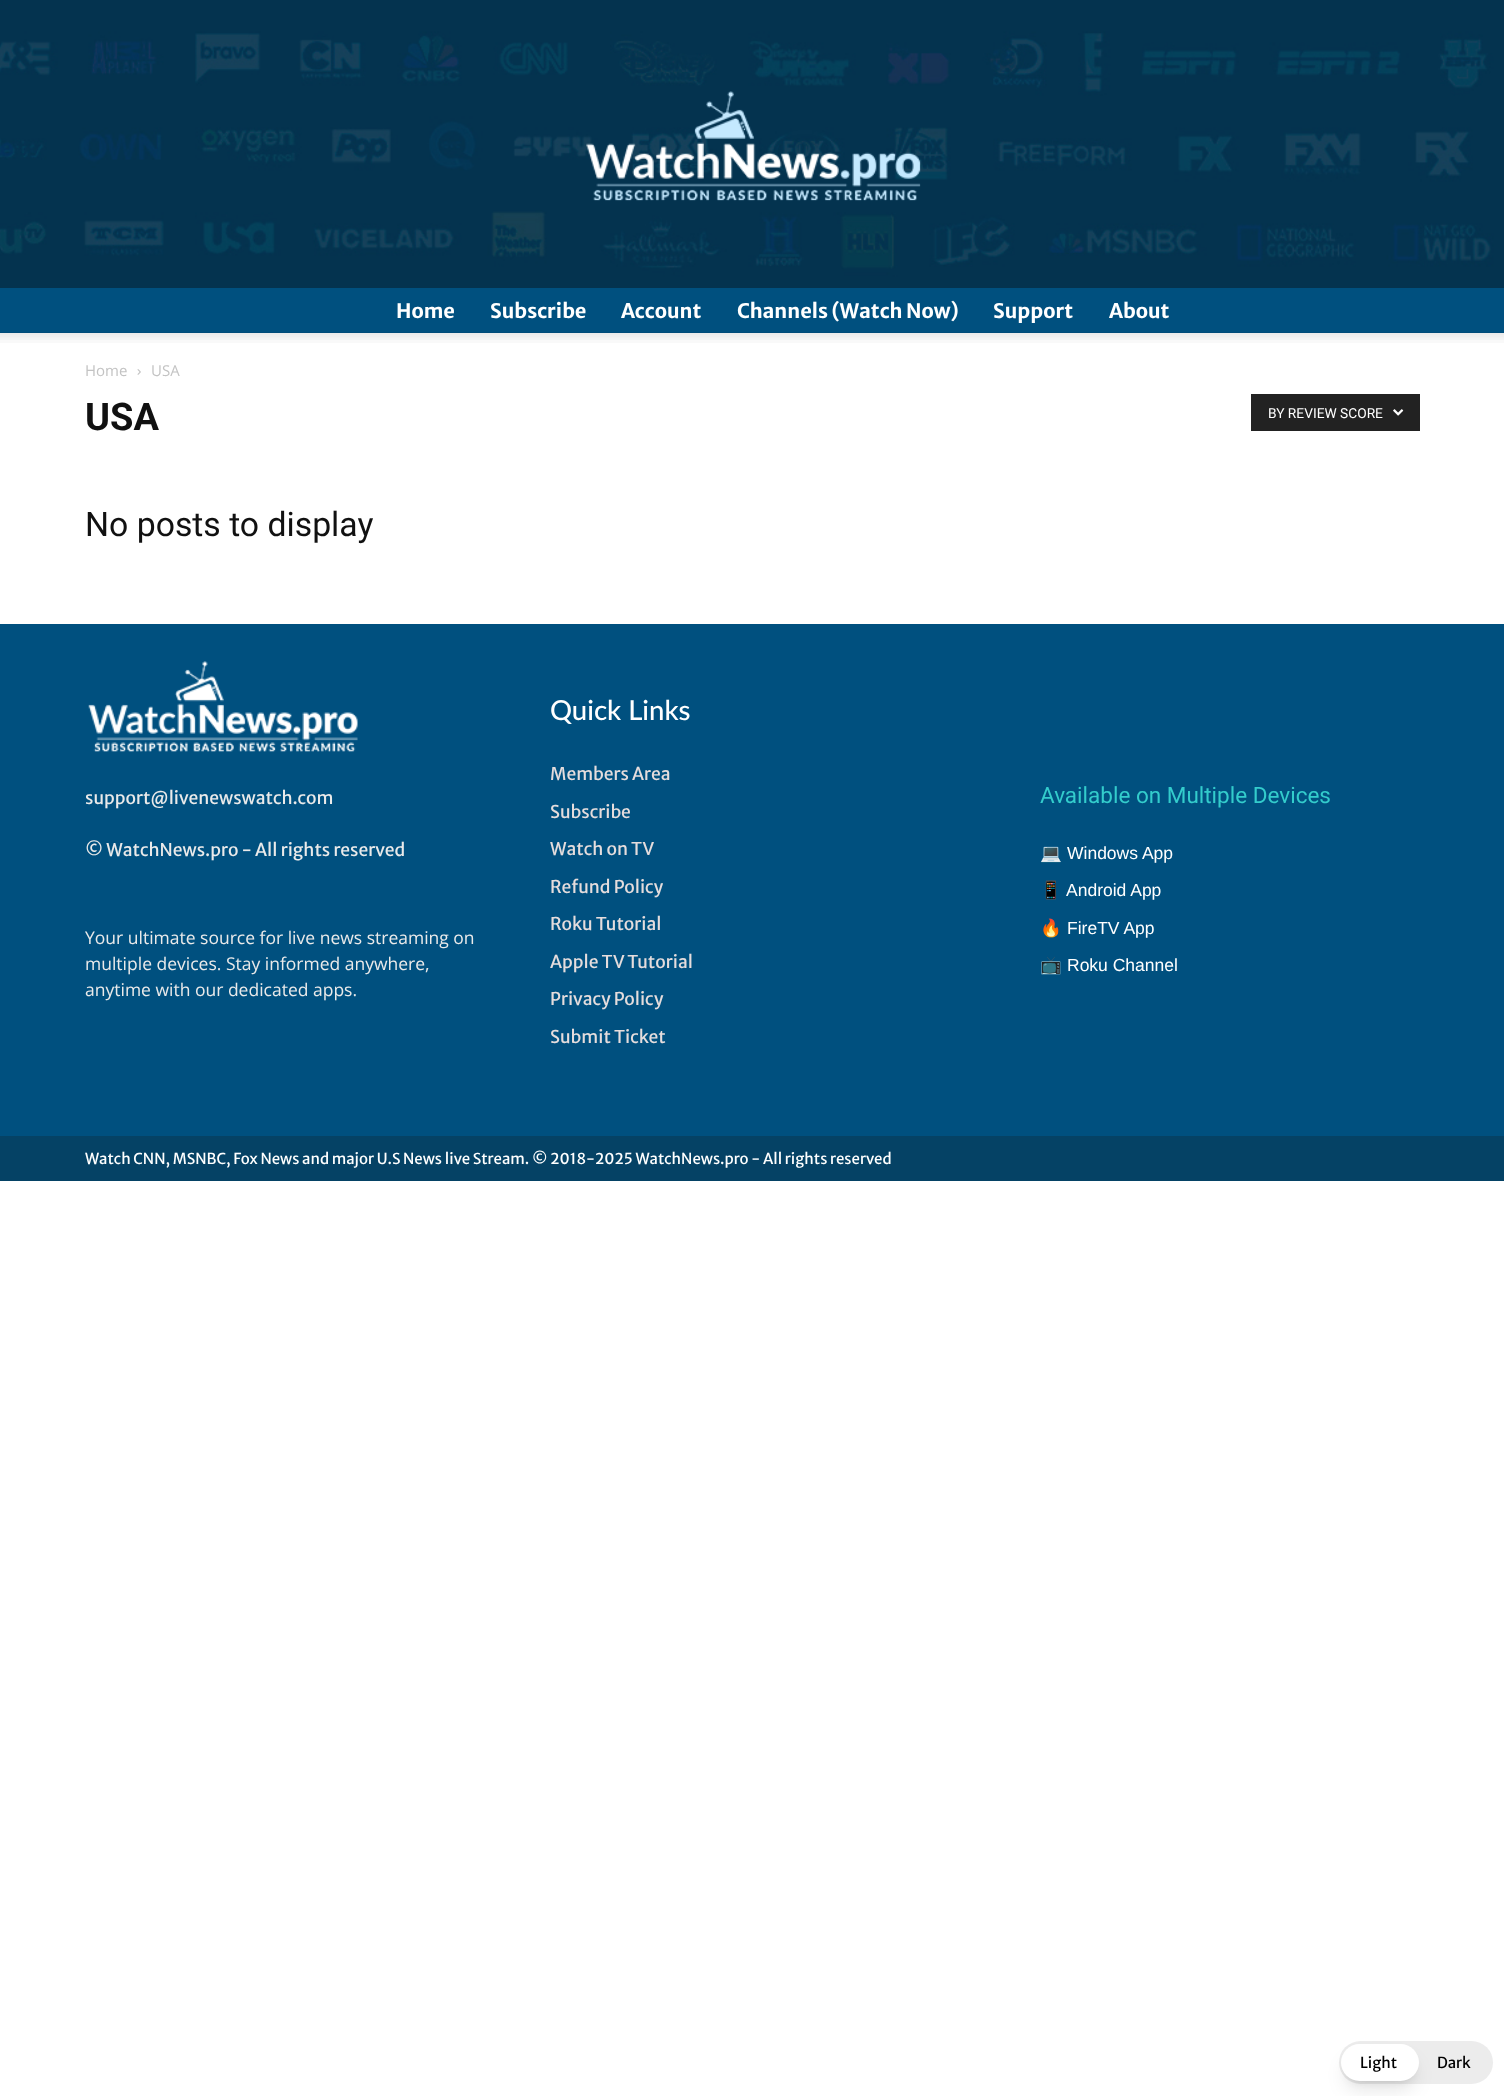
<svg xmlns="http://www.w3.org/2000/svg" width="1504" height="2096">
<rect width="100%" height="100%" fill="#fff"/>
<image x="0" y="0" width="1504" height="288" href="media/1.png"/>
<image x="586" y="91" width="335" height="110" href="media/2.png"/>
<rect y="288" width="1504" height="45" fill="#00507f"/>
<text x="396" y="318" style="font-family:Merriweather Sans;font-size:20px;font-weight:bold;fill:#fff">Home</text>
<text x="490" y="318" style="font-family:Merriweather Sans;font-size:20px;font-weight:bold;fill:#fff">Subscribe</text>
<text x="621" y="318" style="font-family:Merriweather Sans;font-size:20px;font-weight:bold;fill:#fff">Account</text>
<text x="737" y="318" style="font-family:Merriweather Sans;font-size:20px;font-weight:bold;fill:#fff">Channels (Watch Now)</text>
<text x="993" y="318" style="font-family:Merriweather Sans;font-size:20px;font-weight:bold;fill:#fff">Support</text>
<text x="1109" y="318" style="font-family:Merriweather Sans;font-size:20px;font-weight:bold;fill:#fff">About</text>
<image x="0" y="332" width="1504" height="11" href="media/3.png"/>
<text x="85" y="376" style="font-family:Open Sans;font-size:15px;fill:#c3c3c3">Home</text>
<image x="137" y="369" width="4" height="6" href="media/4.png"/>
<text x="151" y="376" style="font-family:Open Sans;font-size:15px;fill:#c3c3c3">USA</text>
<text x="85" y="430" style="font-family:Roboto;font-size:38px;font-weight:bold;fill:#111">USA</text>
<rect x="1251" y="394" width="169" height="37" fill="#222"/>
<text x="1268" y="418" style="font-family:Roboto;font-size:13.75px;fill:#fff">BY REVIEW SCORE</text>
<image x="1393" y="409" width="11" height="7" href="media/5.png"/>
<text x="85" y="536" style="font-family:Roboto;font-size:33.75px;fill:#111">No posts to display</text>
<rect y="624" width="1504" height="512" fill="#00507f"/>
<image x="88" y="661" width="270" height="91" href="media/6.png"/>
<text x="85" y="804" style="font-family:Merriweather Sans;font-size:17.5px;fill:#eaeaea">support@livenewswatch.com</text>
<text x="85" y="856" style="font-family:Merriweather Sans;font-size:17.5px;fill:#eaeaea">© WatchNews.pro - All rights reserved</text>
<text x="85" y="944" style="font-family:Open Sans;font-size:17.5px;fill:#eaeaea">Your ultimate source for live news streaming on</text>
<text x="85" y="970" style="font-family:Open Sans;font-size:17.5px;fill:#eaeaea">multiple devices. Stay informed anywhere,</text>
<text x="85" y="996" style="font-family:Open Sans;font-size:17.5px;fill:#eaeaea">anytime with our dedicated apps.</text>
<text x="550" y="720" style="font-family:Lato;font-size:27.5px;font-weight:500;fill:#fff">Quick Links</text>
<text x="550" y="780" style="font-family:Merriweather Sans;font-size:17.5px;fill:#e5dddd">Members Area</text>
<text x="550" y="818" style="font-family:Merriweather Sans;font-size:17.5px;fill:#e5dddd">Subscribe</text>
<text x="550" y="855" style="font-family:Merriweather Sans;font-size:17.5px;fill:#e5dddd">Watch on TV</text>
<text x="550" y="893" style="font-family:Merriweather Sans;font-size:17.5px;fill:#e5dddd">Refund Policy</text>
<text x="550" y="930" style="font-family:Merriweather Sans;font-size:17.5px;fill:#e5dddd">Roku Tutorial</text>
<text x="550" y="968" style="font-family:Merriweather Sans;font-size:17.5px;fill:#e5dddd">Apple TV Tutorial</text>
<text x="550" y="1005" style="font-family:Merriweather Sans;font-size:17.5px;fill:#e5dddd">Privacy Policy</text>
<text x="550" y="1043" style="font-family:Merriweather Sans;font-size:17.5px;fill:#e5dddd">Submit Ticket</text>
<text x="1040" y="803" style="font-family:Roboto;font-size:22.5px;fill:#3cc">Available on Multiple Devices</text>
<text x="1040" y="859" style="font-family:Noto Color Emoji;font-size:17.5px;fill:#fff">💻</text>
<text x="1067" y="859" style="font-family:Liberation Sans;font-size:17.5px;fill:#fff">Windows App</text>
<text x="1040" y="896" style="font-family:Noto Color Emoji;font-size:17.5px;fill:#fff">📱</text>
<text x="1066" y="896" style="font-family:Liberation Sans;font-size:17.5px;fill:#fff">Android App</text>
<text x="1040" y="934" style="font-family:Noto Color Emoji;font-size:17.5px;fill:#fff">🔥</text>
<text x="1067" y="934" style="font-family:Liberation Sans;font-size:17.5px;fill:#fff">FireTV App</text>
<text x="1040" y="971" style="font-family:Noto Color Emoji;font-size:17.5px;fill:#fff">📺</text>
<text x="1067" y="971" style="font-family:Liberation Sans;font-size:17.5px;fill:#fff">Roku Channel</text>
<rect y="1136" width="1504" height="45" fill="#054265"/>
<text x="85" y="1164" style="font-family:Merriweather Sans;font-size:15px;fill:#fff">Watch CNN, MSNBC, Fox News and major U.S News live Stream. © 2018-2025 WatchNews.pro - All rights reserved</text>
<rect x="1339" y="2041" width="154" height="43" rx="21.5" fill="#ececec"/>
<rect x="1346" y="2054" width="68" height="27" rx="13.5" fill="#0000001a" filter="blur(4px)"/>
<rect x="1345" y="2060" width="70" height="30" rx="15" fill="#0000001a" filter="blur(9.5px)"/>
<rect x="1341" y="2044" width="78" height="37" rx="18.5" fill="#fff"/>
<text x="1360" y="2068" style="font-family:Merriweather Sans;font-size:15px;fill:#000">Light</text>
<text x="1437" y="2068" style="font-family:Merriweather Sans;font-size:15px;fill:#000">Dark</text>
</svg>
